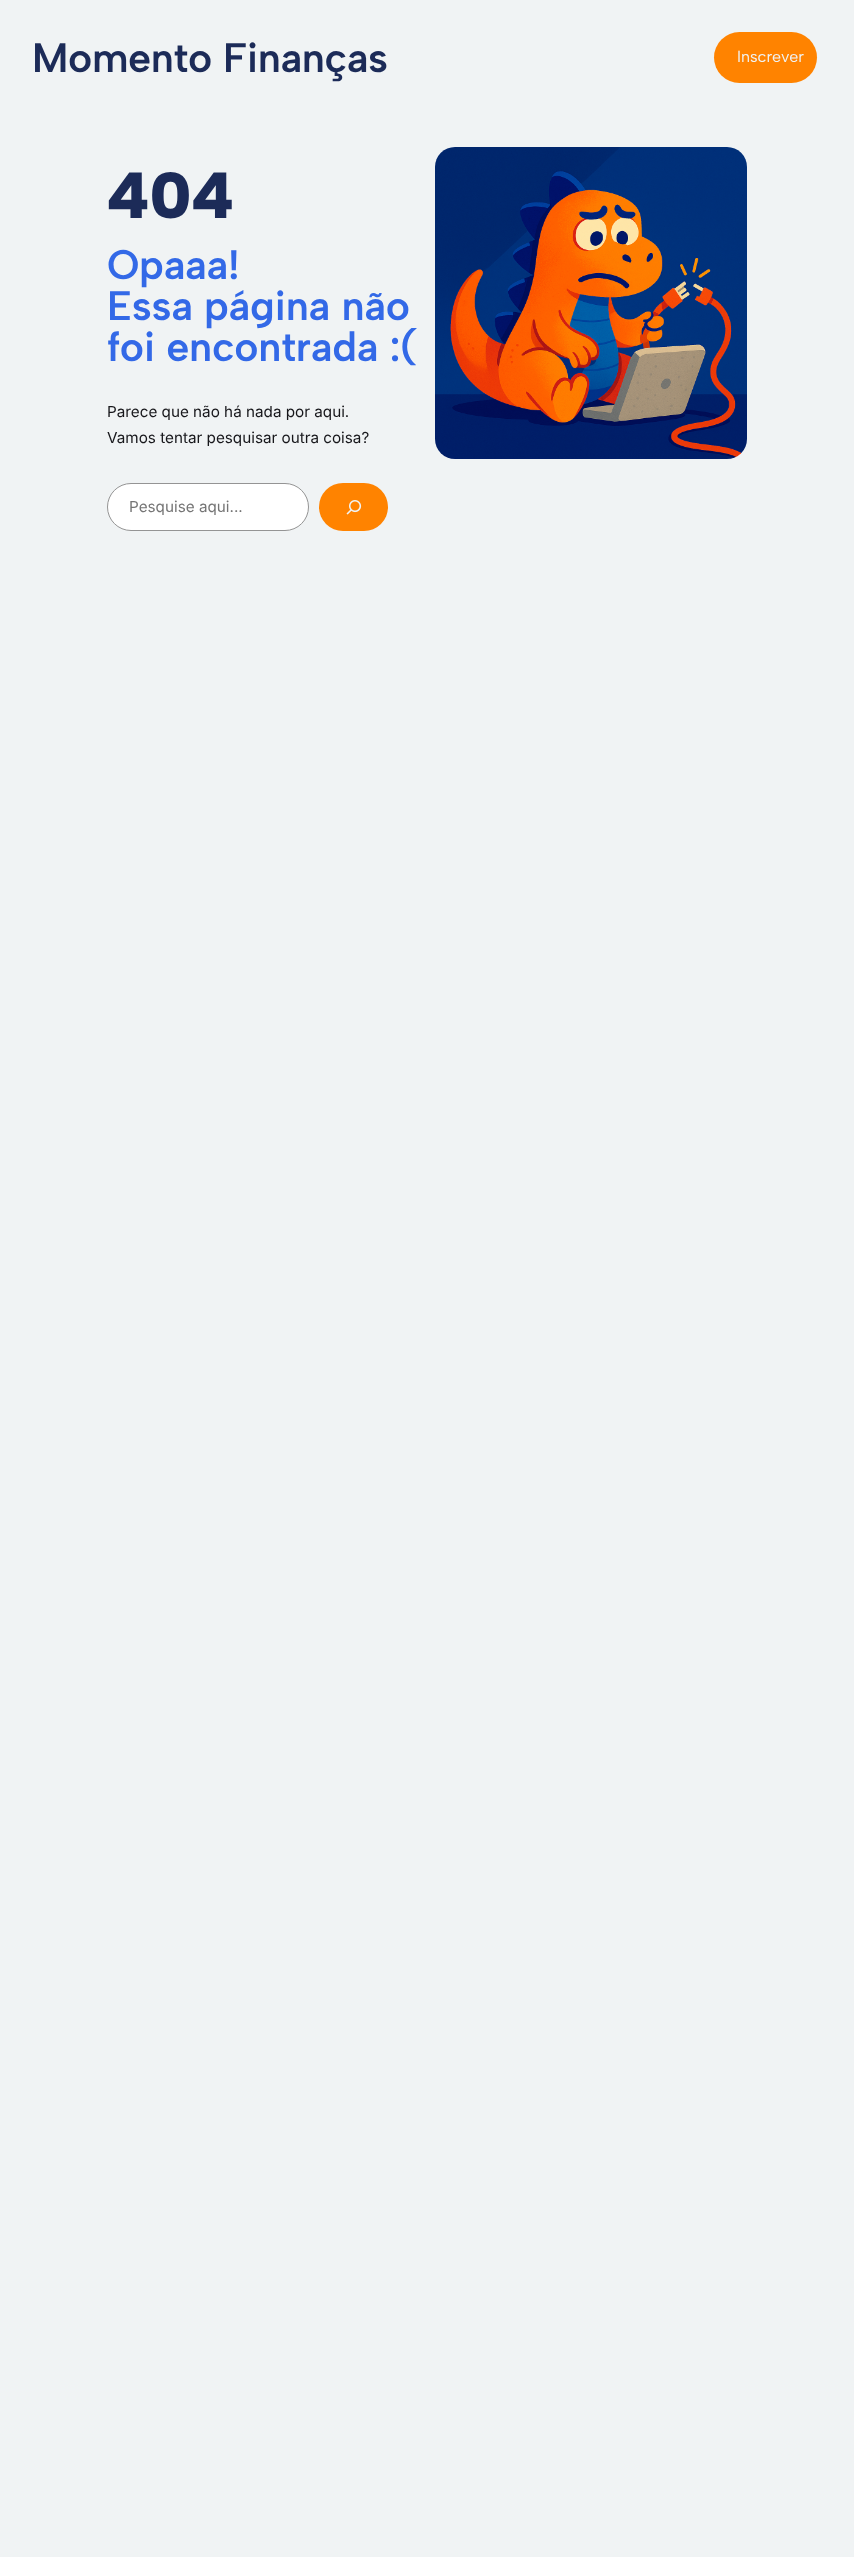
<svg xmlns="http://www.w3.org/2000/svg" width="854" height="2557">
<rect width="100%" height="100%" fill="#f0f3f4"/>
<text x="32" y="72" style="font-family:Albert Sans;font-size:41.25px;font-weight:600;letter-spacing:-0.4px;fill:#1c2b58">Momento Finanças</text>
<rect x="714" y="32" width="103" height="51" rx="25.5" fill="#ff8300"/>
<text x="737" y="62" style="font-family:Albert Sans;font-size:16px;fill:#f0f3f4">Inscrever</text>
<text x="107" y="218" style="font-family:Albert Sans;font-size:65px;font-weight:900;letter-spacing:-0.25px;fill:#1c2b58">404</text>
<text x="107" y="279" style="font-family:Albert Sans;font-size:41.25px;font-weight:600;letter-spacing:-0.25px;fill:#3369e7">Opaaa!</text>
<text x="107" y="320" style="font-family:Albert Sans;font-size:41.25px;font-weight:600;letter-spacing:-0.25px;fill:#3369e7">Essa página não</text>
<text x="107" y="361" style="font-family:Albert Sans;font-size:41.25px;font-weight:600;letter-spacing:-0.25px;fill:#3369e7">foi encontrada :(</text>
<text x="107" y="417" style="font-family:Inter;font-size:15.25px;fill:#17171b">Parece que não há nada por aqui.</text>
<text x="107" y="443" style="font-family:Inter;font-size:15.25px;fill:#17171b">Vamos tentar pesquisar outra coisa?</text>
<rect x="107.5" y="483.5" width="201" height="47" rx="23.5" fill="#fff" stroke="#949494"/>
<text x="129" y="512" style="font-family:Inter;font-size:15.25px;fill:#757575">Pesquise aqui...</text>
<rect x="319" y="483" width="69" height="48" rx="24" fill="#ff8300"/>
<image x="346" y="500" width="16" height="15" href="media/1.png"/>
<image x="435" y="147" width="312" height="312" href="media/2.png"/>
</svg>
